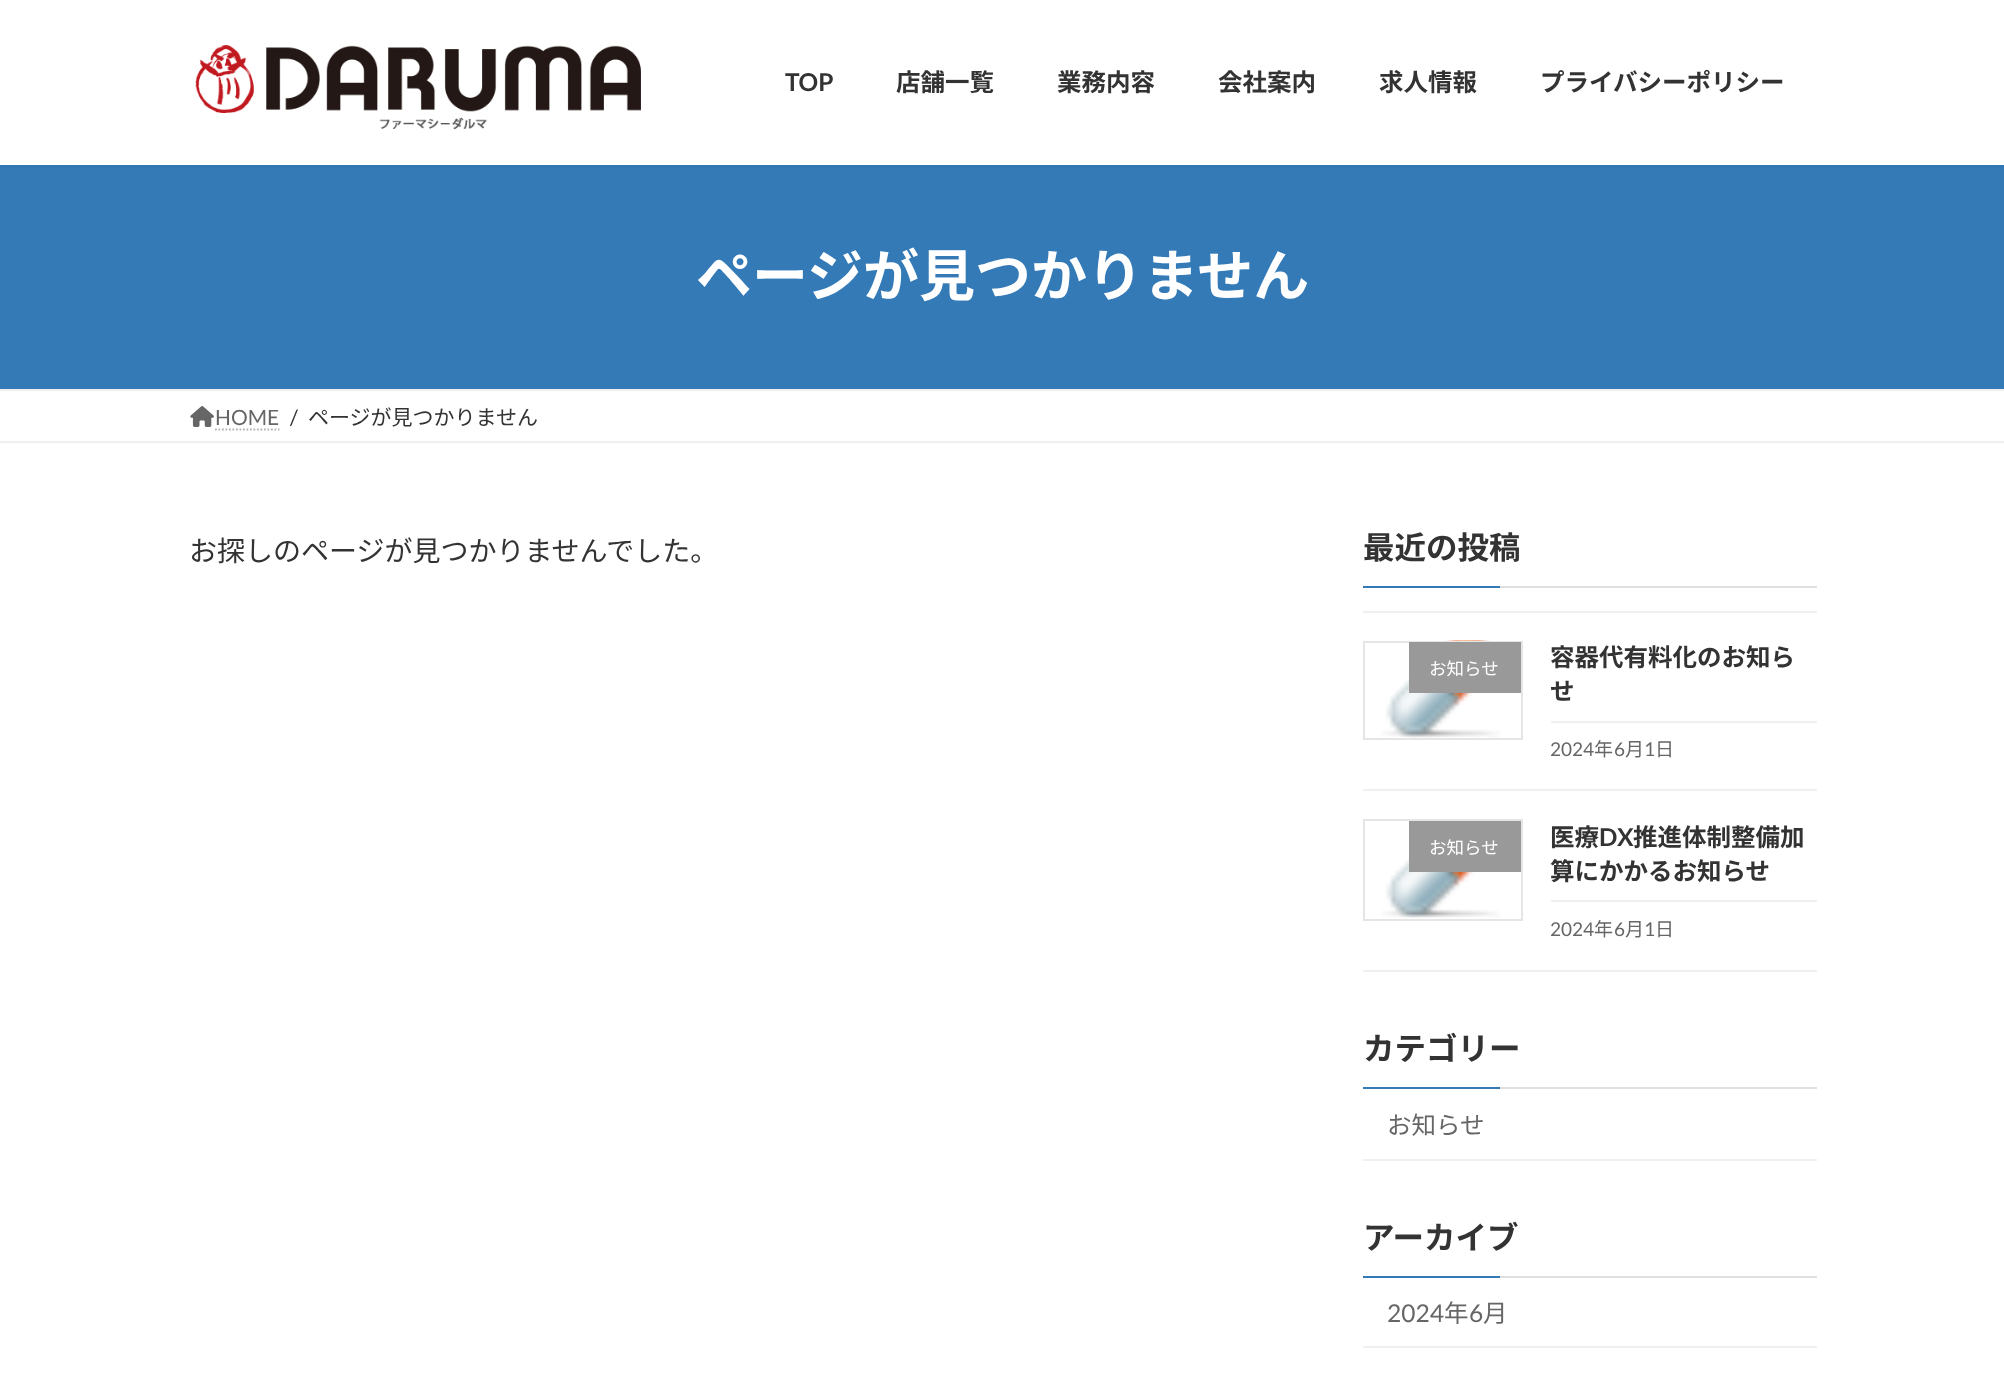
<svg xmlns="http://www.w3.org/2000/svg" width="2004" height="1388">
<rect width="100%" height="100%" fill="#fff"/>
<rect y="165" width="2004" height="224" fill="#337ab7"/>
<rect y="2" width="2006" height="164" fill="#0000000d" filter="blur(2.5px)"/>
<rect width="2004" height="165" fill="#fff"/>
<image x="195" y="45" width="446" height="85" href="media/1.png"/>
<text x="785" y="91" style="font-family:Lato;font-size:24.5px;font-weight:bold;fill:#333">TOP</text>
<text x="896" y="91" style="font-family:Noto Sans JP;font-size:24.5px;font-weight:bold;fill:#333">店舗一覧</text>
<text x="1057" y="91" style="font-family:Noto Sans JP;font-size:24.5px;font-weight:bold;fill:#333">業務内容</text>
<text x="1218" y="91" style="font-family:Noto Sans JP;font-size:24.5px;font-weight:bold;fill:#333">会社案内</text>
<text x="1379" y="91" style="font-family:Noto Sans JP;font-size:24.5px;font-weight:bold;fill:#333">求人情報</text>
<text x="1540" y="91" style="font-family:Noto Sans JP;font-size:24.5px;font-weight:bold;fill:#333">プライバシーポリシー</text>
<text x="696" y="296" style="font-family:Noto Sans JP;font-size:56px;font-weight:bold;fill:#fff">ページが見つかりません</text>
<rect y="389" width="2004" height="2" fill="#f0f0f0"/>
<rect y="441" width="2004" height="2" fill="#f0f0f0"/>
<image x="190" y="406" width="24" height="21" href="media/2.png"/>
<text x="215" y="425" style="font-family:Lato;font-size:21px;fill:#666">HOME</text>
<path d="M215 429.5h64.5" fill="none" stroke="#b3b3b3" stroke-width="1.8" stroke-dasharray="1.75 1.75"/>
<text x="290" y="425" style="font-family:Lato;font-size:21px;fill:#333">/</text>
<text x="308" y="425" style="font-family:Noto Sans JP;font-size:21px;fill:#333">ページが見つかりません</text>
<text x="189" y="561" style="font-family:Noto Sans JP;font-size:28px;fill:#333">お探しのページが見つかりませんでした。</text>
<rect x="1500" y="586" width="317" height="2" fill="#e0e0e0"/>
<text x="1363" y="559" style="font-family:Noto Sans JP;font-size:31.5px;font-weight:bold;fill:#333">最近の投稿</text>
<rect x="1363" y="586" width="137" height="2" fill="#337ab7"/>
<rect x="1363" y="611" width="454" height="2" fill="#f0f0f0"/>
<rect x="1363" y="789" width="454" height="2" fill="#f0f0f0"/>
<image x="1381" y="640" width="119" height="98" href="media/3.png"/>
<rect x="1364" y="642" width="158" height="97" fill="none" stroke="#e5e5e5" stroke-width="2"/>
<rect x="1409" y="642" width="112" height="51" fill="#999"/>
<text x="1429" y="675" style="font-family:Noto Sans JP;font-size:17.5px;fill:#fff">お知らせ</text>
<rect x="1551" y="721" width="266" height="2" fill="#f0f0f0"/>
<text x="1550" y="666" style="font-family:Noto Sans JP;font-size:24.5px;font-weight:bold;fill:#333">容器代有料化のお知ら</text>
<text x="1550" y="700" style="font-family:Noto Sans JP;font-size:24.5px;font-weight:bold;fill:#333">せ</text>
<text x="1550" y="756" style="font-family:Lato;font-size:19px;fill:#666">2024</text>
<text x="1594" y="756" style="font-family:Noto Sans JP;font-size:19px;fill:#666">年</text>
<text x="1614" y="756" style="font-family:Lato;font-size:19px;fill:#666">6</text>
<text x="1625" y="756" style="font-family:Noto Sans JP;font-size:19px;fill:#666">月</text>
<text x="1644" y="756" style="font-family:Lato;font-size:19px;fill:#666">1</text>
<text x="1655" y="756" style="font-family:Noto Sans JP;font-size:19px;fill:#666">日</text>
<rect x="1363" y="970" width="454" height="2" fill="#f0f0f0"/>
<image x="1381" y="856" width="119" height="62" href="media/4.png"/>
<rect x="1364" y="820" width="158" height="100" fill="none" stroke="#e5e5e5" stroke-width="2"/>
<rect x="1409" y="821" width="112" height="51" fill="#999"/>
<text x="1429" y="854" style="font-family:Noto Sans JP;font-size:17.5px;fill:#fff">お知らせ</text>
<rect x="1551" y="900" width="266" height="2" fill="#f0f0f0"/>
<text x="1550" y="846" style="font-family:Noto Sans JP;font-size:24.5px;font-weight:bold;fill:#333">医療</text>
<text x="1599" y="846" style="font-family:Lato;font-size:24.5px;font-weight:bold;fill:#333">DX</text>
<text x="1633" y="846" style="font-family:Noto Sans JP;font-size:24.5px;font-weight:bold;fill:#333">推進体制整備加</text>
<text x="1550" y="880" style="font-family:Noto Sans JP;font-size:24.5px;font-weight:bold;fill:#333">算にかかるお知らせ</text>
<text x="1550" y="936" style="font-family:Lato;font-size:19px;fill:#666">2024</text>
<text x="1594" y="936" style="font-family:Noto Sans JP;font-size:19px;fill:#666">年</text>
<text x="1614" y="936" style="font-family:Lato;font-size:19px;fill:#666">6</text>
<text x="1625" y="936" style="font-family:Noto Sans JP;font-size:19px;fill:#666">月</text>
<text x="1644" y="936" style="font-family:Lato;font-size:19px;fill:#666">1</text>
<text x="1655" y="936" style="font-family:Noto Sans JP;font-size:19px;fill:#666">日</text>
<rect x="1500" y="1087" width="317" height="2" fill="#e0e0e0"/>
<text x="1363" y="1060" style="font-family:Noto Sans JP;font-size:31.5px;font-weight:bold;fill:#333">カテゴリー</text>
<rect x="1363" y="1087" width="137" height="2" fill="#337ab7"/>
<rect x="1363" y="1159" width="454" height="2" fill="#f0f0f0"/>
<text x="1387" y="1134" style="font-family:Noto Sans JP;font-size:24.5px;fill:#666">お知らせ</text>
<rect x="1500" y="1276" width="317" height="2" fill="#e0e0e0"/>
<text x="1363" y="1249" style="font-family:Noto Sans JP;font-size:31.5px;font-weight:bold;fill:#333">アーカイブ</text>
<rect x="1363" y="1276" width="137" height="2" fill="#337ab7"/>
<rect x="1363" y="1346" width="454" height="2" fill="#f0f0f0"/>
<text x="1387" y="1322" style="font-family:Lato;font-size:24.5px;fill:#666">2024</text>
<text x="1444" y="1322" style="font-family:Noto Sans JP;font-size:24.5px;fill:#666">年</text>
<text x="1469" y="1322" style="font-family:Lato;font-size:24.5px;fill:#666">6</text>
<text x="1483" y="1322" style="font-family:Noto Sans JP;font-size:24.5px;fill:#666">月</text>
</svg>
